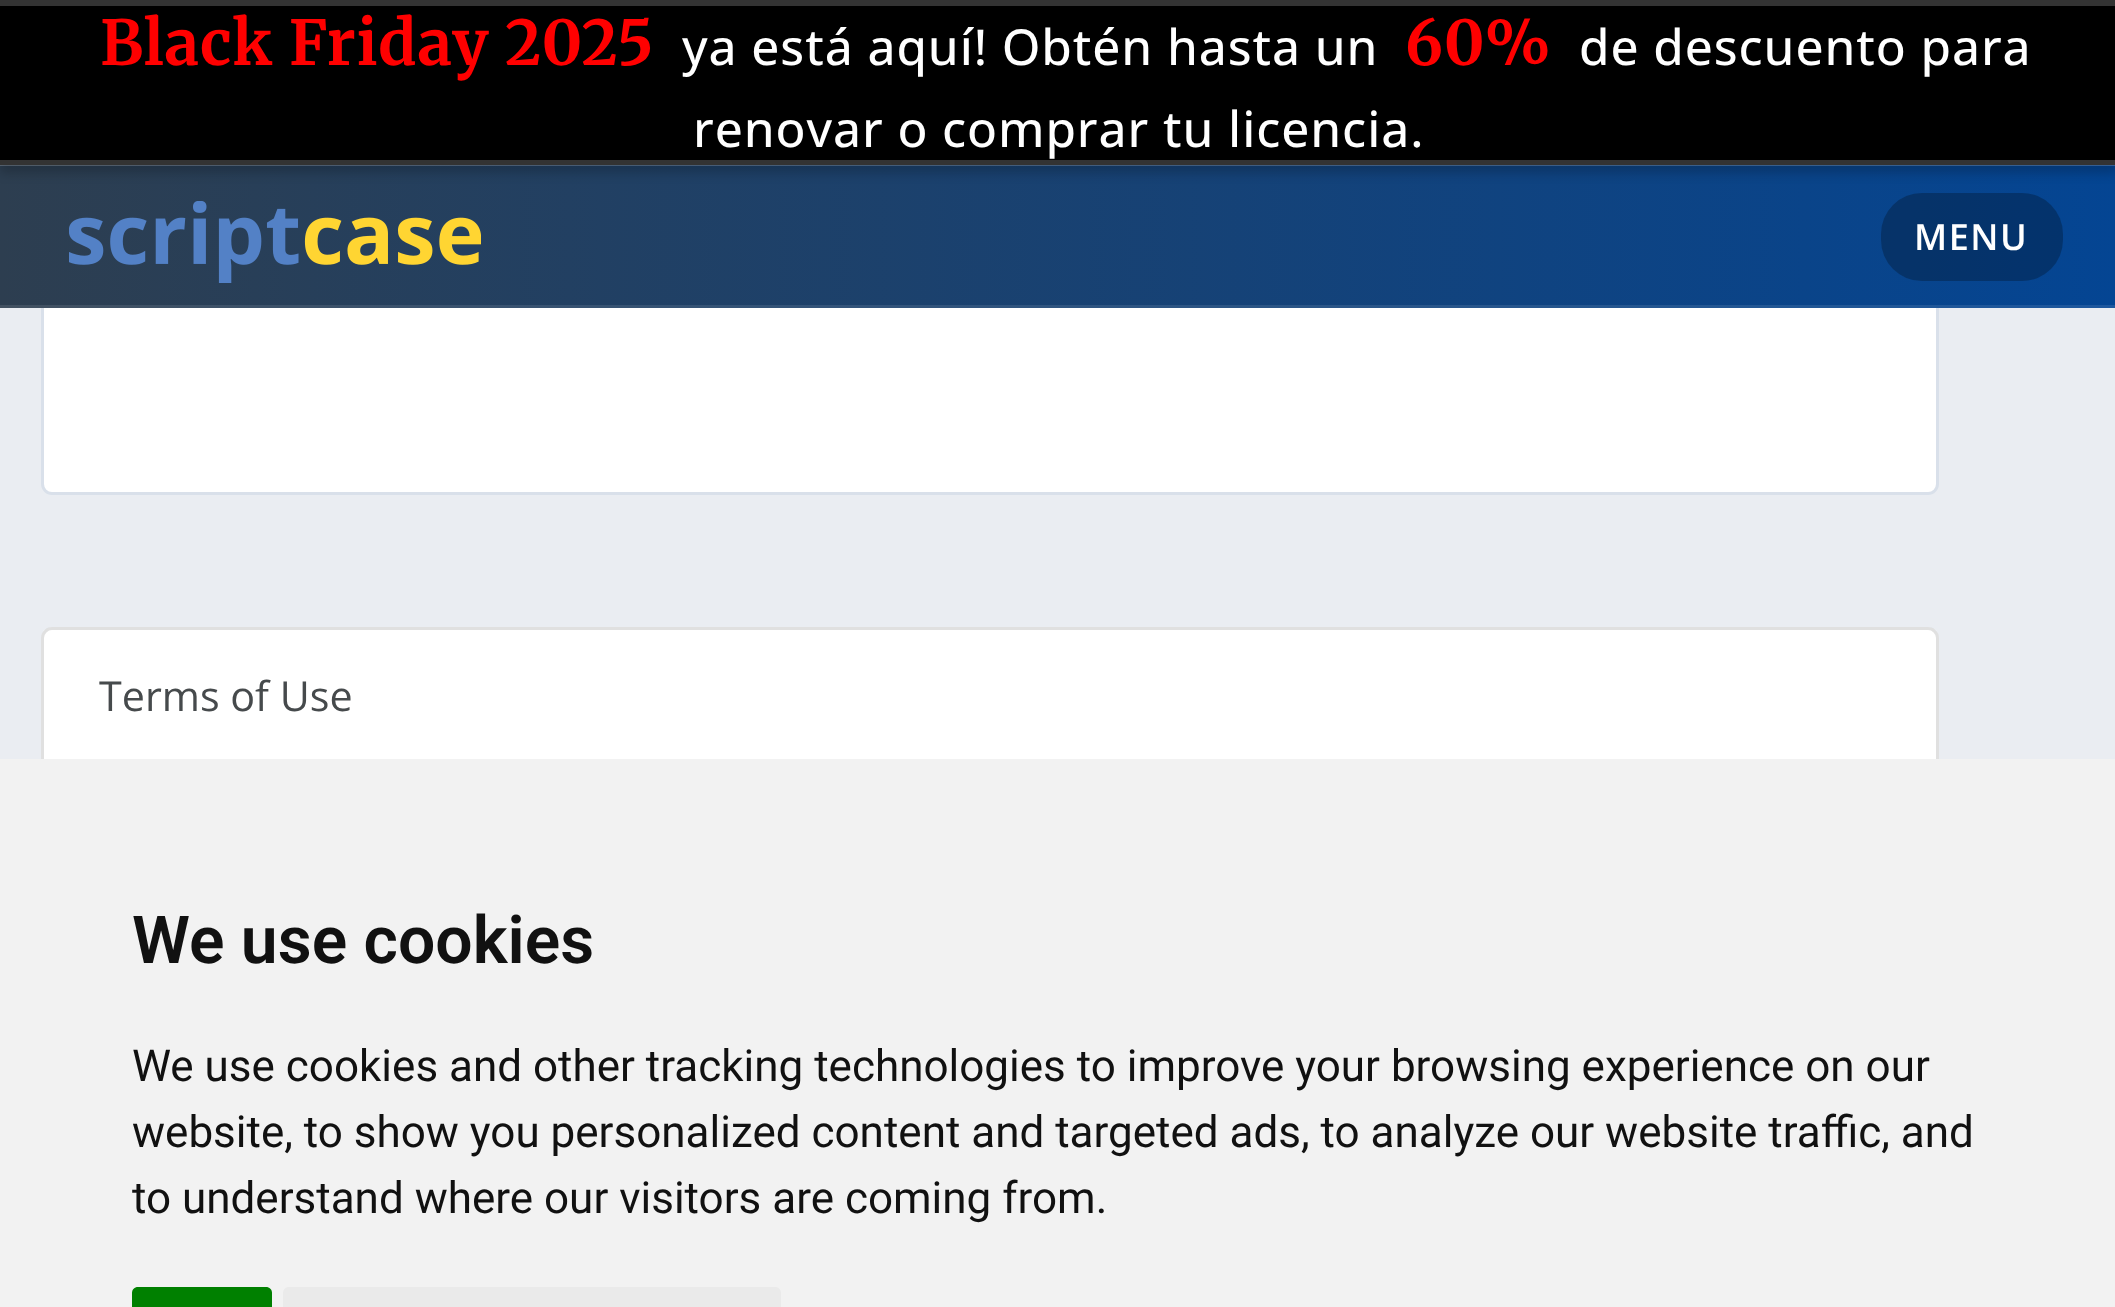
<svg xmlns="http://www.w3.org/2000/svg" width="2115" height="1307">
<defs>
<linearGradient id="g1" gradientUnits="userSpaceOnUse" x1="0" y1="84" x2="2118" y2="84"><stop offset="0" stop-color="#2d3e50"/><stop offset="1" stop-color="#044593"/></linearGradient>
</defs>
<rect width="100%" height="100%" fill="#eaedf2"/>
<rect x="42.5" y="-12.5" width="1895" height="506" rx="9.5" fill="#fff" stroke="#d9e0ea" stroke-width="3"/>
<rect y="165" width="2115" height="143" fill="url(#g1)"/>
<rect y="8" width="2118" height="165" fill="#00000033" filter="blur(5.5px)"/>
<rect y="6" width="2115" height="159" fill="#000"/>
<rect width="2115" height="6" fill="#333"/>
<rect y="160" width="2115" height="6" fill="#ffffff33"/>
<text x="100" y="65" style="font-family:Merriweather;font-size:61.9px;font-weight:bold;letter-spacing:0.9px;fill:#f00">Black Friday 2025</text>
<text x="682" y="65" style="font-family:Open Sans;font-size:49.5px;font-weight:500;letter-spacing:0.9px;fill:#fff">ya está aquí! Obtén hasta un</text>
<text x="1405" y="65" style="font-family:Merriweather;font-size:61.9px;font-weight:bold;letter-spacing:0.9px;fill:#f00">60%</text>
<text x="1579" y="65" style="font-family:Open Sans;font-size:49.5px;font-weight:500;letter-spacing:0.9px;fill:#fff">de descuento para</text>
<text x="693" y="147" style="font-family:Open Sans;font-size:49.5px;font-weight:500;letter-spacing:0.9px;fill:#fff">renovar o comprar tu licencia.</text>
<rect y="305" width="2115" height="3" fill="#ffffff1a"/>
<image x="69" y="201" width="412" height="82" href="media/1.png"/>
<rect x="1881" y="193" width="182" height="88" rx="41" fill="#00000040"/>
<text x="1914" y="250" style="font-family:Open Sans;font-size:36px;font-weight:600;letter-spacing:1.5px;fill:#fff">MENU</text>
<path d="M52 627h1876c6 0 11 5 11 11v124h-1898v-124c0-6 5-11 11-11z" fill="#fff"/>
<path d="M52 628.5h1876c5 0 9.5 4.5 9.5 9.5v122.5h-1895v-122.5c0-5 4.5-9.5 9.5-9.5z" fill="none" stroke="#0000001f" stroke-width="3"/>
<text x="99" y="711" style="font-family:Open Sans;font-size:41.25px;fill:#464a4c">Terms of Use</text>
<rect y="759" width="2115" height="548" fill="#f2f2f2"/>
<text x="132" y="963" style="font-family:Roboto;font-size:66px;font-weight:600;fill:#111">We use cookies</text>
<text x="132" y="1081" style="font-family:Roboto;font-size:44px;fill:#111">We use cookies and other tracking technologies to improve your browsing experience on our</text>
<text x="132" y="1147" style="font-family:Roboto;font-size:44px;fill:#111">website, to show you personalized content and targeted ads, to analyze our website traffic, and</text>
<text x="132" y="1213" style="font-family:Roboto;font-size:44px;fill:#111">to understand where our visitors are coming from.</text>
<path d="M138 1287h128c3.5 0 6 2.5 6 6v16h-140v-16c0-3.5 2.5-6 6-6z" fill="#008000"/>
<path d="M289 1287h486c3.5 0 6 2.5 6 6v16h-498v-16c0-3.5 2.5-6 6-6z" fill="#eaeaea"/>
</svg>
